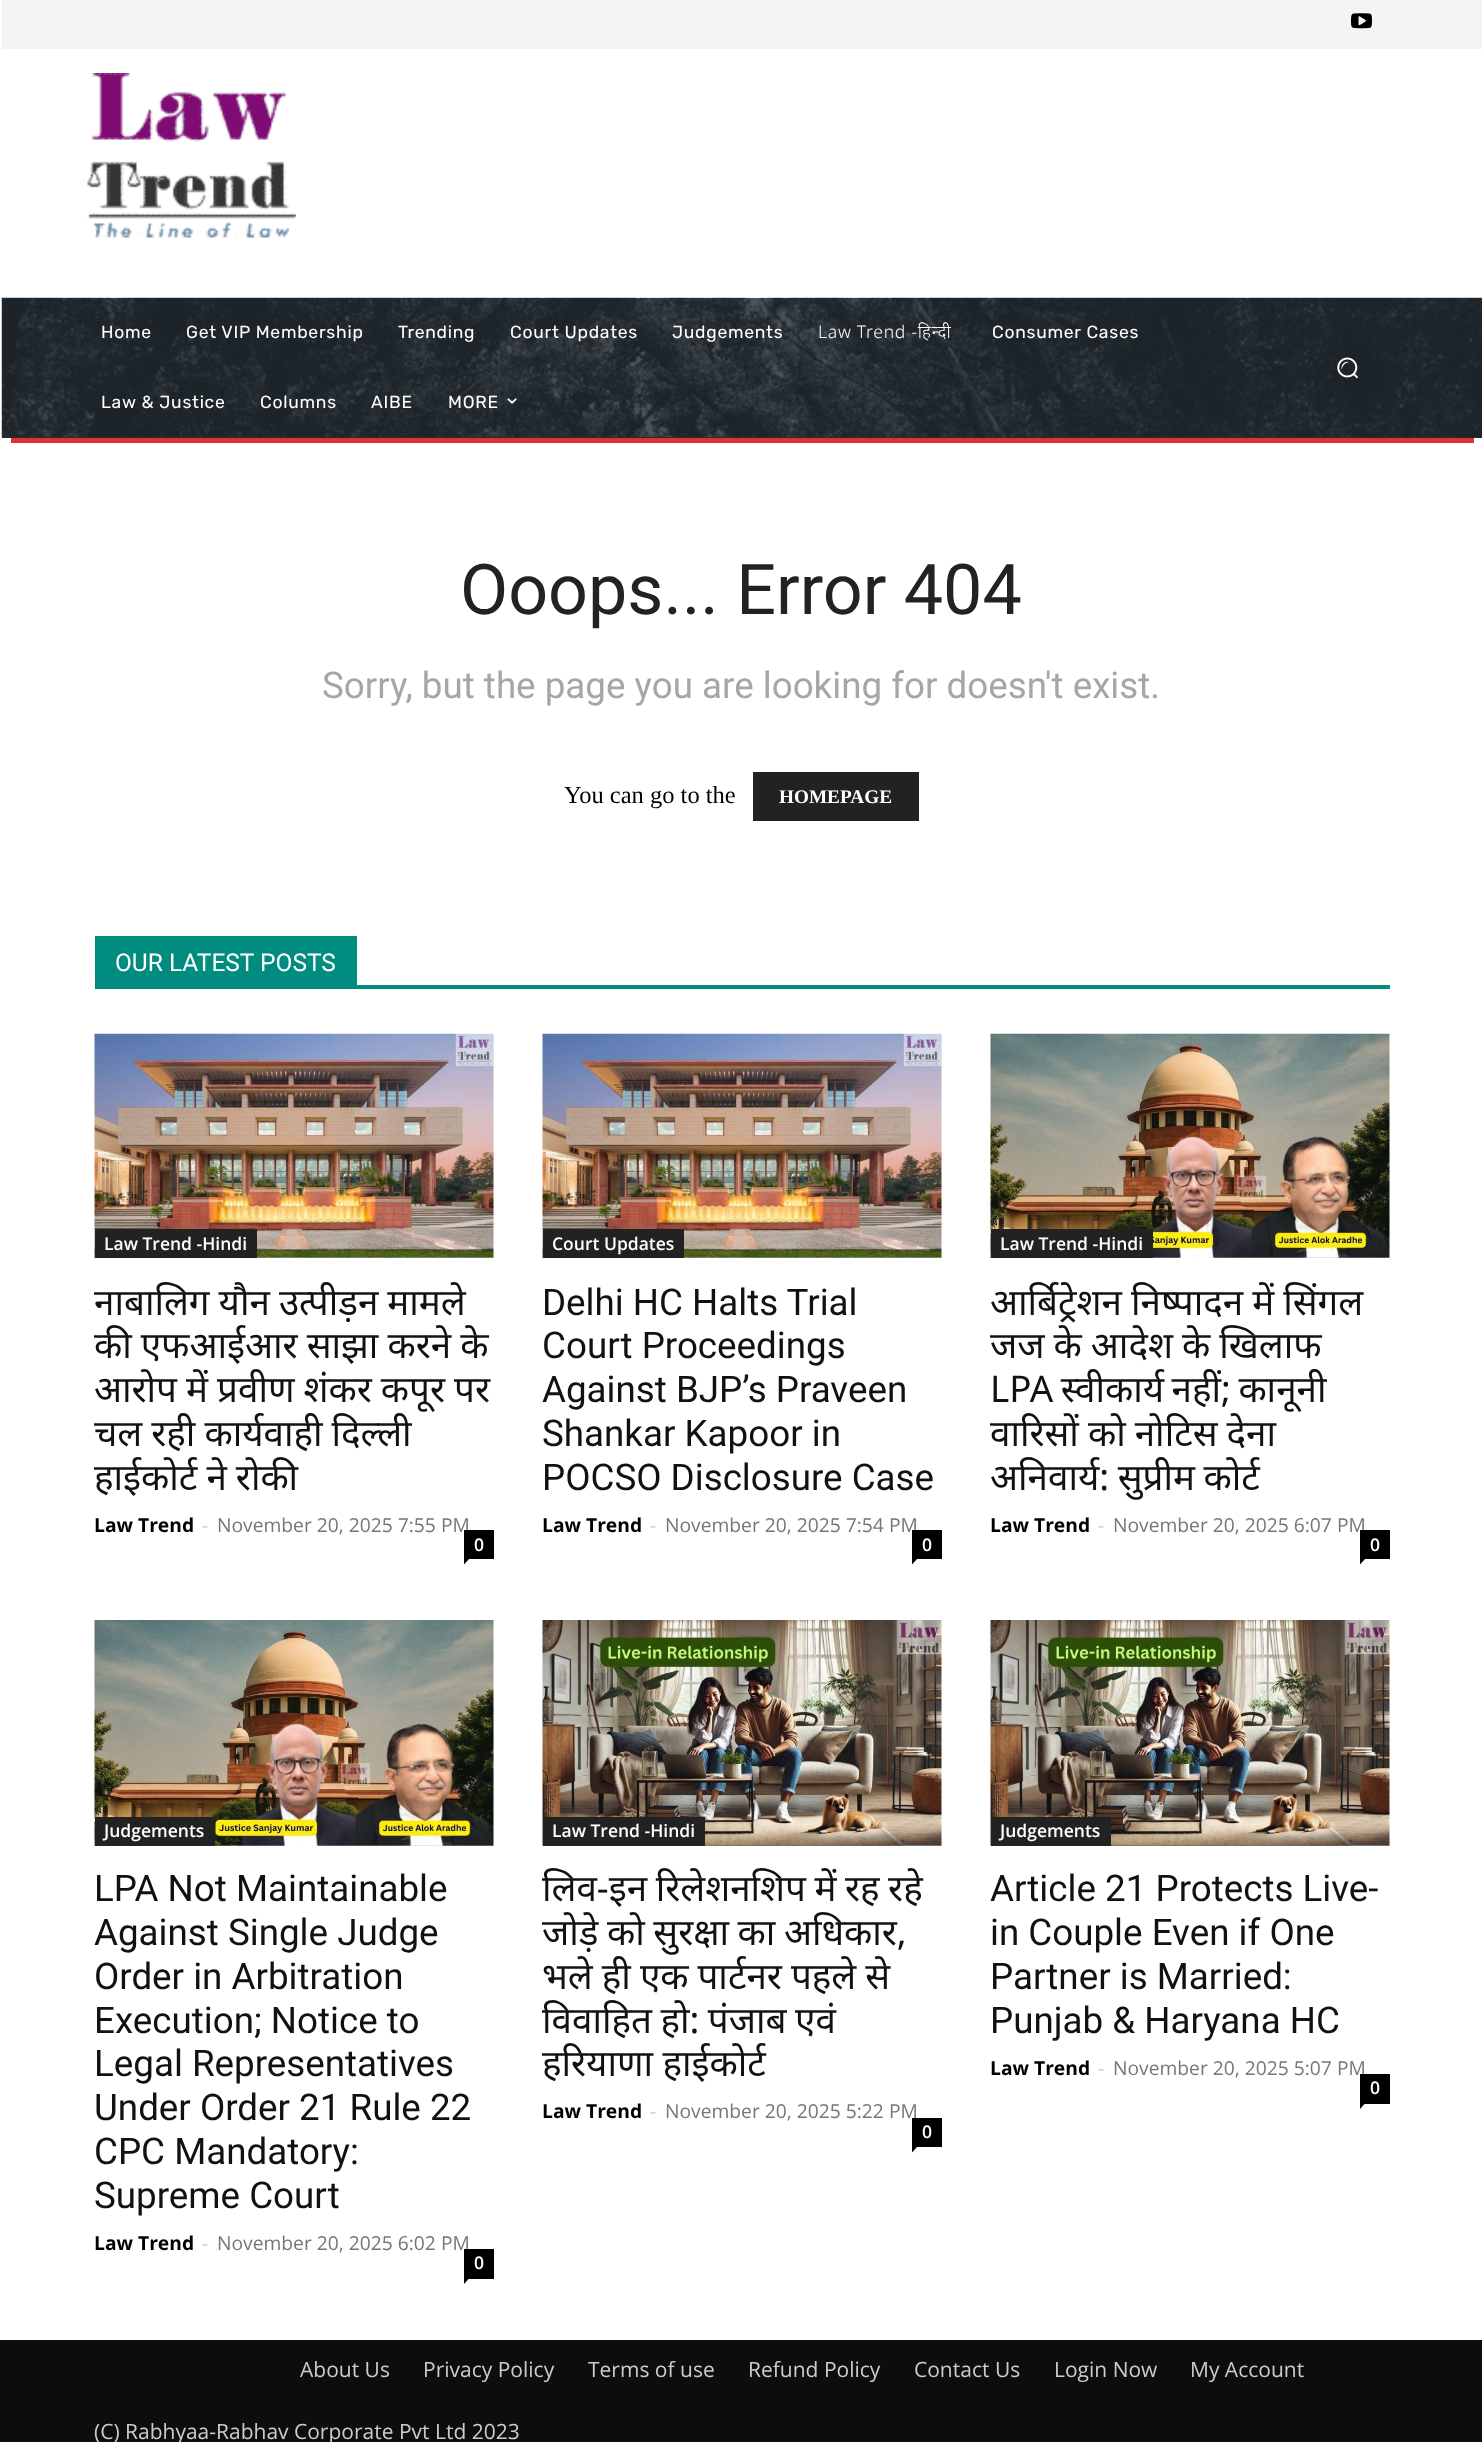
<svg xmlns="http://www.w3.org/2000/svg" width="1482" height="2442">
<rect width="100%" height="100%" fill="#fff"/>
<rect x="2" width="1480" height="49" fill="#f4f4f4"/>
<image x="1351" y="13" width="21" height="16" href="media/1.png"/>
<image x="87" y="73" width="209" height="165" href="media/2.png"/>
<rect x="2" y="298" width="1480" height="140" fill="#232d35"/>
<image x="1" y="297" width="1481" height="140" href="media/3.png"/>
<text x="101" y="338" style="font-family:Rubik;font-size:17.5px;letter-spacing:0.75px;fill:#fff">Home</text>
<text x="186" y="338" style="font-family:Rubik;font-size:17.5px;letter-spacing:0.75px;fill:#fff">Get VIP Membership</text>
<text x="398" y="338" style="font-family:Rubik;font-size:17.5px;letter-spacing:0.75px;fill:#fff">Trending</text>
<text x="510" y="338" style="font-family:Rubik;font-size:17.5px;letter-spacing:0.75px;fill:#fff">Court Updates</text>
<text x="672" y="338" style="font-family:Rubik;font-size:17.5px;letter-spacing:0.75px;fill:#fff">Judgements</text>
<text x="818" y="338" style="font-family:Noto Sans;font-size:17.5px;font-weight:300;letter-spacing:0.75px;fill:#fff">Law Trend -हिन्दी</text>
<text x="992" y="338" style="font-family:Rubik;font-size:17.5px;letter-spacing:0.75px;fill:#fff">Consumer Cases</text>
<text x="101" y="408" style="font-family:Rubik;font-size:17.5px;letter-spacing:0.75px;fill:#fff">Law &amp; Justice</text>
<text x="260" y="408" style="font-family:Rubik;font-size:17.5px;letter-spacing:0.75px;fill:#fff">Columns</text>
<text x="371" y="408" style="font-family:Rubik;font-size:17.5px;letter-spacing:0.75px;fill:#fff">AIBE</text>
<text x="448" y="408" style="font-family:Rubik;font-size:17.5px;letter-spacing:0.75px;fill:#fff">MORE</text>
<image x="507" y="398" width="10" height="6" href="media/4.png"/>
<image x="1337" y="357" width="22" height="22" href="media/5.png"/>
<rect x="11" y="438" width="1463" height="5" fill="#d33"/>
<text x="460" y="614" style="font-family:Roboto;font-size:70px;fill:#222">Ooops... Error 404</text>
<text x="322" y="698" style="font-family:Roboto;font-size:36.75px;fill:#a6a6a6">Sorry, but the page you are looking for doesn't exist.</text>
<text x="564" y="803" style="font-family:Liberation Serif;font-size:24.5px;fill:#000">You can go to the</text>
<rect x="753" y="772" width="166" height="49" fill="#222"/>
<text x="779" y="803" style="font-family:Liberation Serif;font-size:19.25px;font-weight:bold;fill:#fff">HOMEPAGE</text>
<rect x="95" y="985" width="1295" height="4" fill="#008d7f"/>
<rect x="95" y="936" width="262" height="49" fill="#008d7f"/>
<text x="115" y="971" style="font-family:Roboto;font-size:24.5px;fill:#fff">OUR LATEST POSTS</text>
<image x="94" y="1033" width="400" height="225" href="media/6.png"/>
<rect x="95" y="1229" width="162" height="29" fill="#222"/>
<text x="104" y="1250" style="font-family:Open Sans;font-size:17.5px;font-weight:600;fill:#fff">Law Trend -Hindi</text>
<text x="94" y="1315" word-spacing="-0.5" style="font-family:Noto Sans;font-size:36.75px;fill:#111">नाबालिग यौन उत्पीड़न मामले</text>
<text x="94" y="1358" word-spacing="-0.5" style="font-family:Noto Sans;font-size:36.75px;fill:#111">की एफआईआर साझा करने के</text>
<text x="94" y="1402" word-spacing="-0.5" style="font-family:Noto Sans;font-size:36.75px;fill:#111">आरोप में प्रवीण शंकर कपूर पर</text>
<text x="94" y="1446" word-spacing="-0.5" style="font-family:Noto Sans;font-size:36.75px;fill:#111">चल रही कार्यवाही दिल्ली</text>
<text x="94" y="1490" word-spacing="-0.5" style="font-family:Noto Sans;font-size:36.75px;fill:#111">हाईकोर्ट ने रोकी</text>
<text x="94" y="1532" style="font-family:Open Sans;font-size:19.25px;font-weight:bold;fill:#000">Law Trend</text>
<text x="202" y="1532" style="font-family:Open Sans;font-size:19.25px;fill:#ccc">-</text>
<text x="217" y="1532" style="font-family:Open Sans;font-size:19.25px;fill:#767676">November 20, 2025 7:55 PM</text>
<rect x="464" y="1530" width="30" height="29" fill="#000"/>
<text x="474" y="1551" style="font-family:Open Sans;font-size:17.5px;font-weight:600;fill:#fff">0</text>
<path d="M464 1559h5l-5 5.5z" fill="#000"/>
<image x="542" y="1033" width="400" height="225" href="media/7.png"/>
<rect x="543" y="1229" width="141" height="29" fill="#222"/>
<text x="552" y="1250" style="font-family:Open Sans;font-size:17.5px;font-weight:600;fill:#fff">Court Updates</text>
<text x="542" y="1315" style="font-family:Roboto;font-size:36.75px;fill:#111">Delhi HC Halts Trial</text>
<text x="542" y="1358" style="font-family:Roboto;font-size:36.75px;fill:#111">Court Proceedings</text>
<text x="542" y="1402" style="font-family:Roboto;font-size:36.75px;fill:#111">Against BJP’s Praveen</text>
<text x="542" y="1446" style="font-family:Roboto;font-size:36.75px;fill:#111">Shankar Kapoor in</text>
<text x="542" y="1490" style="font-family:Roboto;font-size:36.75px;fill:#111">POCSO Disclosure Case</text>
<text x="542" y="1532" style="font-family:Open Sans;font-size:19.25px;font-weight:bold;fill:#000">Law Trend</text>
<text x="650" y="1532" style="font-family:Open Sans;font-size:19.25px;fill:#ccc">-</text>
<text x="665" y="1532" style="font-family:Open Sans;font-size:19.25px;fill:#767676">November 20, 2025 7:54 PM</text>
<rect x="912" y="1530" width="30" height="29" fill="#000"/>
<text x="922" y="1551" style="font-family:Open Sans;font-size:17.5px;font-weight:600;fill:#fff">0</text>
<path d="M912 1559h5l-5 5.5z" fill="#000"/>
<image x="990" y="1033" width="400" height="225" href="media/8.png"/>
<rect x="991" y="1229" width="162" height="29" fill="#222"/>
<text x="1000" y="1250" style="font-family:Open Sans;font-size:17.5px;font-weight:600;fill:#fff">Law Trend -Hindi</text>
<text x="990" y="1315" word-spacing="-0.5" style="font-family:Noto Sans;font-size:36.75px;fill:#111">आर्बिट्रेशन निष्पादन में सिंगल</text>
<text x="990" y="1358" word-spacing="-0.5" style="font-family:Noto Sans;font-size:36.75px;fill:#111">जज के आदेश के खिलाफ</text>
<text x="990" y="1402" word-spacing="-2" style="font-family:Noto Sans;font-size:36.75px;fill:#111">LPA स्वीकार्य नहीं; कानूनी</text>
<text x="990" y="1446" word-spacing="-0.5" style="font-family:Noto Sans;font-size:36.75px;fill:#111">वारिसों को नोटिस देना</text>
<text x="990" y="1490" word-spacing="-1" style="font-family:Noto Sans;font-size:36.75px;fill:#111">अनिवार्य: सुप्रीम कोर्ट</text>
<text x="990" y="1532" style="font-family:Open Sans;font-size:19.25px;font-weight:bold;fill:#000">Law Trend</text>
<text x="1098" y="1532" style="font-family:Open Sans;font-size:19.25px;fill:#ccc">-</text>
<text x="1113" y="1532" style="font-family:Open Sans;font-size:19.25px;fill:#767676">November 20, 2025 6:07 PM</text>
<rect x="1360" y="1530" width="30" height="29" fill="#000"/>
<text x="1370" y="1551" style="font-family:Open Sans;font-size:17.5px;font-weight:600;fill:#fff">0</text>
<path d="M1360 1559h5l-5 5.5z" fill="#000"/>
<image x="94" y="1620" width="400" height="226" href="media/9.png"/>
<rect x="95" y="1817" width="120" height="29" fill="#222"/>
<text x="104" y="1837" style="font-family:Open Sans;font-size:17.5px;font-weight:600;fill:#fff">Judgements</text>
<text x="94" y="1901" style="font-family:Roboto;font-size:36.75px;fill:#111">LPA Not Maintainable</text>
<text x="94" y="1945" style="font-family:Roboto;font-size:36.75px;fill:#111">Against Single Judge</text>
<text x="94" y="1989" style="font-family:Roboto;font-size:36.75px;fill:#111">Order in Arbitration</text>
<text x="94" y="2033" style="font-family:Roboto;font-size:36.75px;fill:#111">Execution; Notice to</text>
<text x="94" y="2076" style="font-family:Roboto;font-size:36.75px;fill:#111">Legal Representatives</text>
<text x="94" y="2120" style="font-family:Roboto;font-size:36.75px;fill:#111">Under Order 21 Rule 22</text>
<text x="94" y="2164" style="font-family:Roboto;font-size:36.75px;fill:#111">CPC Mandatory:</text>
<text x="94" y="2208" style="font-family:Roboto;font-size:36.75px;fill:#111">Supreme Court</text>
<text x="94" y="2250" style="font-family:Open Sans;font-size:19.25px;font-weight:bold;fill:#000">Law Trend</text>
<text x="202" y="2250" style="font-family:Open Sans;font-size:19.25px;fill:#ccc">-</text>
<text x="217" y="2250" style="font-family:Open Sans;font-size:19.25px;fill:#767676">November 20, 2025 6:02 PM</text>
<rect x="464" y="2249" width="30" height="30" fill="#000"/>
<text x="474" y="2269" style="font-family:Open Sans;font-size:17.5px;font-weight:600;fill:#fff">0</text>
<path d="M464 2278.5h5l-5 5.5z" fill="#000"/>
<image x="542" y="1620" width="400" height="226" href="media/10.png"/>
<rect x="543" y="1817" width="162" height="29" fill="#222"/>
<text x="552" y="1837" style="font-family:Open Sans;font-size:17.5px;font-weight:600;fill:#fff">Law Trend -Hindi</text>
<text x="542" y="1901" word-spacing="-1" style="font-family:Noto Sans;font-size:36.75px;fill:#111">लिव-इन रिलेशनशिप में रह रहे</text>
<text x="542" y="1945" word-spacing="-1" style="font-family:Noto Sans;font-size:36.75px;fill:#111">जोड़े को सुरक्षा का अधिकार,</text>
<text x="542" y="1989" word-spacing="-0.5" style="font-family:Noto Sans;font-size:36.75px;fill:#111">भले ही एक पार्टनर पहले से</text>
<text x="542" y="2033" word-spacing="-1" style="font-family:Noto Sans;font-size:36.75px;fill:#111">विवाहित हो: पंजाब एवं</text>
<text x="542" y="2076" style="font-family:Noto Sans;font-size:36.75px;fill:#111">हरियाणा हाईकोर्ट</text>
<text x="542" y="2118" style="font-family:Open Sans;font-size:19.25px;font-weight:bold;fill:#000">Law Trend</text>
<text x="650" y="2118" style="font-family:Open Sans;font-size:19.25px;fill:#ccc">-</text>
<text x="665" y="2118" style="font-family:Open Sans;font-size:19.25px;fill:#767676">November 20, 2025 5:22 PM</text>
<rect x="912" y="2118" width="30" height="29" fill="#000"/>
<text x="922" y="2138" style="font-family:Open Sans;font-size:17.5px;font-weight:600;fill:#fff">0</text>
<path d="M912 2147h5l-5 5.5z" fill="#000"/>
<image x="990" y="1620" width="400" height="226" href="media/10.png"/>
<rect x="991" y="1817" width="120" height="29" fill="#222"/>
<text x="1000" y="1837" style="font-family:Open Sans;font-size:17.5px;font-weight:600;fill:#fff">Judgements</text>
<text x="990" y="1901" style="font-family:Roboto;font-size:36.75px;fill:#111">Article 21 Protects Live-</text>
<text x="990" y="1945" style="font-family:Roboto;font-size:36.75px;fill:#111">in Couple Even if One</text>
<text x="990" y="1989" style="font-family:Roboto;font-size:36.75px;fill:#111">Partner is Married:</text>
<text x="990" y="2033" style="font-family:Roboto;font-size:36.75px;fill:#111">Punjab &amp; Haryana HC</text>
<text x="990" y="2075" style="font-family:Open Sans;font-size:19.25px;font-weight:bold;fill:#000">Law Trend</text>
<text x="1098" y="2075" style="font-family:Open Sans;font-size:19.25px;fill:#ccc">-</text>
<text x="1113" y="2075" style="font-family:Open Sans;font-size:19.25px;fill:#767676">November 20, 2025 5:07 PM</text>
<rect x="1360" y="2074" width="30" height="30" fill="#000"/>
<text x="1370" y="2094" style="font-family:Open Sans;font-size:17.5px;font-weight:600;fill:#fff">0</text>
<path d="M1360 2103.5h5l-5 5.5z" fill="#000"/>
<rect y="2340" width="1482" height="102" fill="#0d0d0d"/>
<text x="300" y="2377" style="font-family:Open Sans;font-size:21px;fill:#ccc">About Us</text>
<text x="423" y="2377" style="font-family:Open Sans;font-size:21px;fill:#ccc">Privacy Policy</text>
<text x="588" y="2377" style="font-family:Open Sans;font-size:21px;fill:#ccc">Terms of use</text>
<text x="748" y="2377" style="font-family:Open Sans;font-size:21px;fill:#ccc">Refund Policy</text>
<text x="914" y="2377" style="font-family:Open Sans;font-size:21px;fill:#ccc">Contact Us</text>
<text x="1054" y="2377" style="font-family:Open Sans;font-size:21px;fill:#ccc">Login Now</text>
<text x="1190" y="2377" style="font-family:Open Sans;font-size:21px;fill:#ccc">My Account</text>
<text x="94" y="2439" style="font-family:Open Sans;font-size:21px;fill:#ccc">(C) Rabhyaa-Rabhav Corporate Pvt Ltd 2023</text>
</svg>
